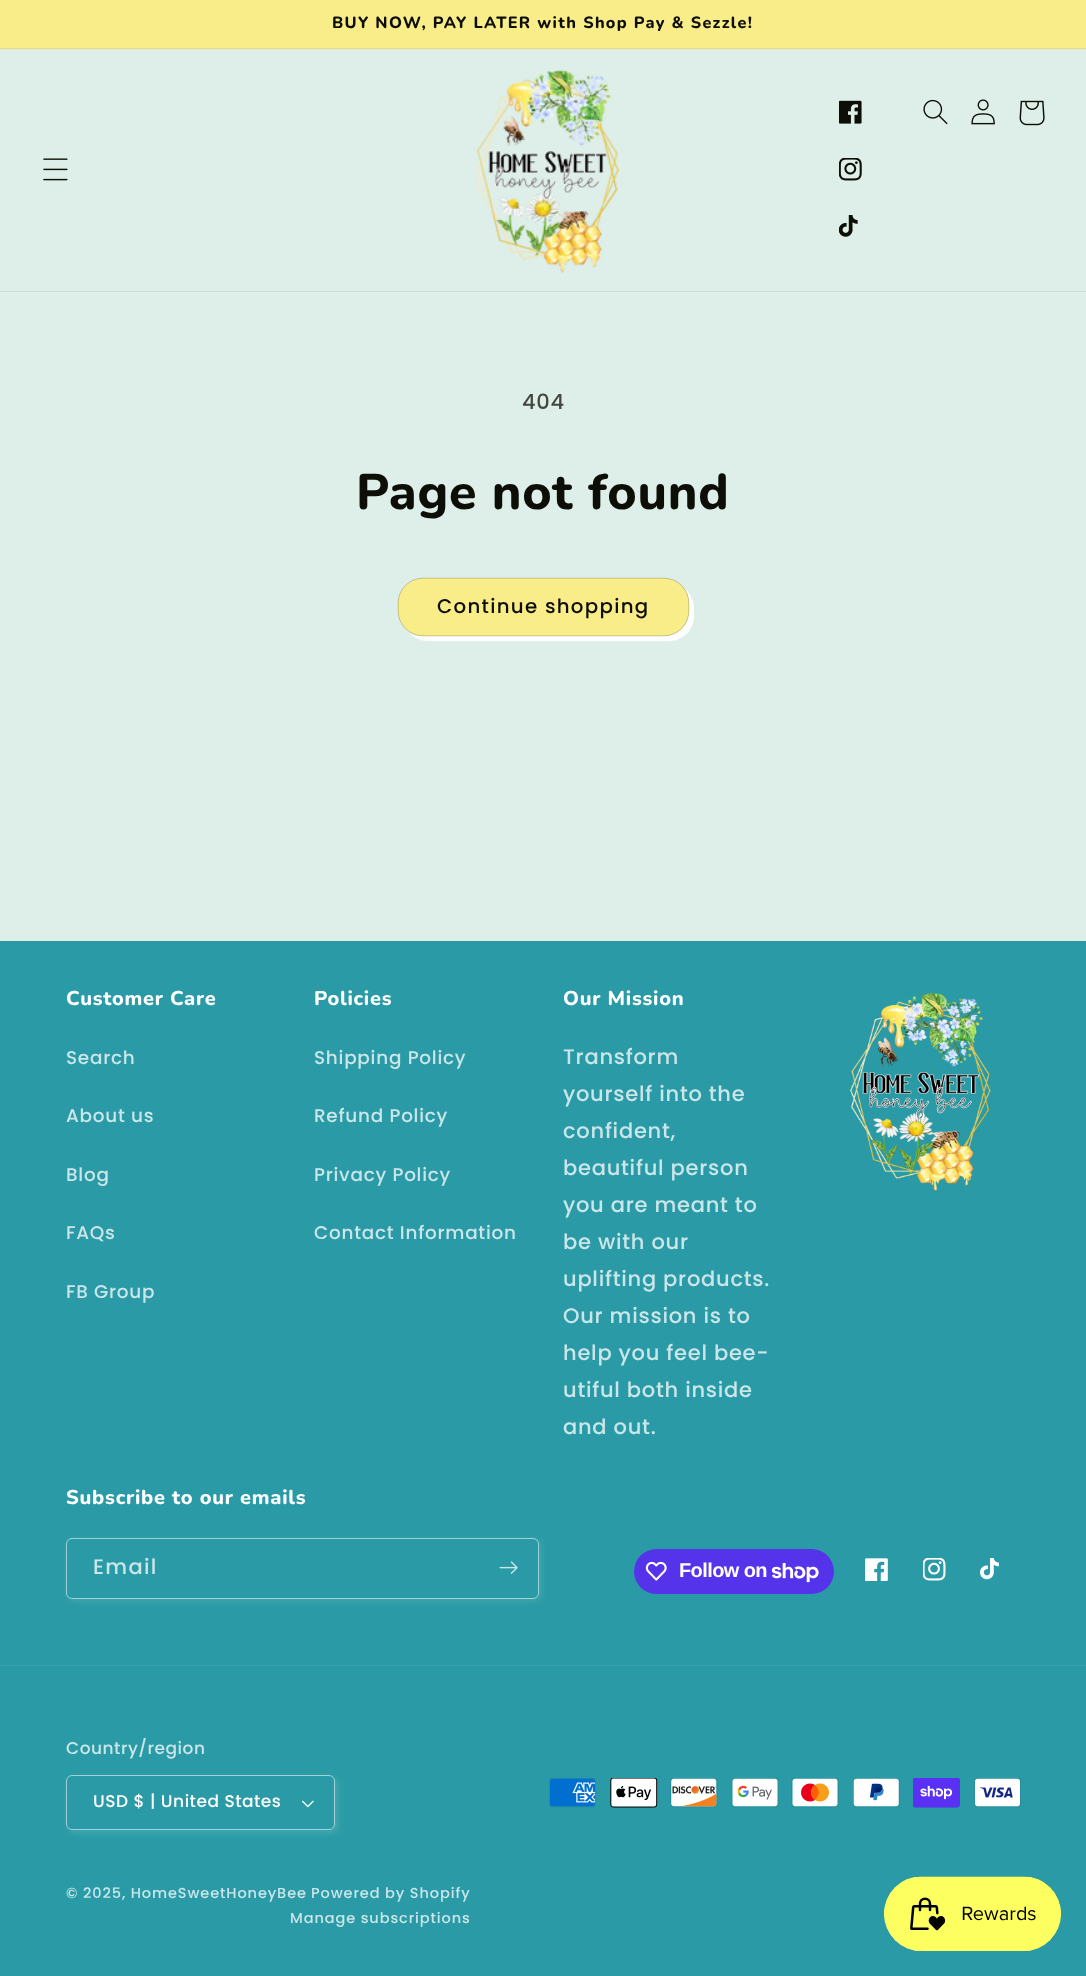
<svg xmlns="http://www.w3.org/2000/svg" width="1086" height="1976">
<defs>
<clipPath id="clip1"><path d="M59 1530h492v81h-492zm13 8h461c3.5 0 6 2.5 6 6v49c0 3.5-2.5 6-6 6h-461c-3.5 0-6-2.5-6-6v-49c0-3.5 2.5-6 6-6z" clip-rule="evenodd"/></clipPath>
</defs>
<rect width="100%" height="100%" fill="#ddefe8"/>
<rect width="1086" height="48" fill="#f9ed89"/>
<rect y="48" width="1086" height="1" fill="#e6db7f"/>
<text x="332" y="28" style="font-family:Nunito;font-size:16.25px;font-weight:800;letter-spacing:1.3px;fill:#0e0e08">BUY NOW, PAY LATER with Shop Pay &amp; Sezzle!</text>
<rect y="291" width="1086" height="1" fill="#ccddd6"/>
<image x="43" y="158" width="25" height="23" href="media/1.png"/>
<image x="475" y="70" width="144" height="203" href="media/2.png"/>
<image x="839" y="100" width="23" height="24" href="media/3.png"/>
<image x="839" y="158" width="23" height="23" href="media/4.png"/>
<image x="839" y="215" width="19" height="22" href="media/5.png"/>
<image x="923" y="99" width="25" height="26" href="media/6.png"/>
<image x="971" y="99" width="24" height="26" href="media/7.png"/>
<image x="1019" y="100" width="26" height="26" href="media/8.png"/>
<text x="522" y="409" style="font-family:Poppins;font-size:21px;font-weight:500;letter-spacing:0.75px;fill:#424640">404</text>
<text x="356" y="509" style="font-family:Nunito;font-size:50px;font-weight:800;letter-spacing:0.75px;fill:#0e0e08">Page not found</text>
<path d="M409 632c5 6 11 9 19 9h241c14 0 25-11 25-25v-8c0-8-4-15-10-20c3 4 5 9 5 14v9c0 14-11 25-25 25h-242c-4 0-9-1-13-4z" fill="#fefefe"/>
<rect x="398" y="578" width="291" height="58" rx="25" fill="#f9ed89"/>
<rect x="398.2" y="578.2" width="290.6" height="57.6" rx="24.8" fill="none" stroke="#0e0e0880" stroke-width="0.4"/>
<text x="437" y="613" style="font-family:Poppins;font-size:19.75px;font-weight:500;letter-spacing:1.3px;fill:#0e0e08">Continue shopping</text>
<rect y="941" width="1086" height="1035" fill="#2a9ba6"/>
<text x="66" y="1005" style="font-family:Nunito;font-size:20px;font-weight:800;letter-spacing:0.75px;fill:#fff">Customer Care</text>
<text x="66" y="1064" style="font-family:Poppins;font-size:18.4px;font-weight:500;letter-spacing:0.75px;fill:#cae6e9">Search</text>
<text x="66" y="1122" style="font-family:Poppins;font-size:18.4px;font-weight:500;letter-spacing:0.75px;fill:#cae6e9">About us</text>
<text x="66" y="1181" style="font-family:Poppins;font-size:18.4px;font-weight:500;letter-spacing:0.75px;fill:#cae6e9">Blog</text>
<text x="66" y="1239" style="font-family:Poppins;font-size:18.4px;font-weight:500;letter-spacing:0.75px;fill:#cae6e9">FAQs</text>
<text x="66" y="1298" style="font-family:Poppins;font-size:18.4px;font-weight:500;letter-spacing:0.75px;fill:#cae6e9">FB Group</text>
<text x="314" y="1005" style="font-family:Nunito;font-size:20px;font-weight:800;letter-spacing:0.75px;fill:#fff">Policies</text>
<text x="314" y="1064" style="font-family:Poppins;font-size:18.4px;font-weight:500;letter-spacing:0.75px;fill:#cae6e9">Shipping Policy</text>
<text x="314" y="1122" style="font-family:Poppins;font-size:18.4px;font-weight:500;letter-spacing:0.75px;fill:#cae6e9">Refund Policy</text>
<text x="314" y="1181" style="font-family:Poppins;font-size:18.4px;font-weight:500;letter-spacing:0.75px;fill:#cae6e9">Privacy Policy</text>
<text x="314" y="1239" style="font-family:Poppins;font-size:18.4px;font-weight:500;letter-spacing:0.75px;fill:#cae6e9">Contact Information</text>
<text x="563" y="1005" style="font-family:Nunito;font-size:20px;font-weight:800;letter-spacing:0.75px;fill:#fff">Our Mission</text>
<text x="563" y="1064" style="font-family:Poppins;font-size:21px;font-weight:500;letter-spacing:0.75px;fill:#cae6e9">Transform</text>
<text x="563" y="1101" style="font-family:Poppins;font-size:21px;font-weight:500;letter-spacing:0.75px;fill:#cae6e9">yourself into the</text>
<text x="563" y="1138" style="font-family:Poppins;font-size:21px;font-weight:500;letter-spacing:0.75px;fill:#cae6e9">confident,</text>
<text x="563" y="1175" style="font-family:Poppins;font-size:21px;font-weight:500;letter-spacing:0.75px;fill:#cae6e9">beautiful person</text>
<text x="563" y="1212" style="font-family:Poppins;font-size:21px;font-weight:500;letter-spacing:0.75px;fill:#cae6e9">you are meant to</text>
<text x="563" y="1249" style="font-family:Poppins;font-size:21px;font-weight:500;letter-spacing:0.75px;fill:#cae6e9">be with our</text>
<text x="563" y="1286" style="font-family:Poppins;font-size:21px;font-weight:500;letter-spacing:0.75px;fill:#cae6e9">uplifting products.</text>
<text x="563" y="1323" style="font-family:Poppins;font-size:21px;font-weight:500;letter-spacing:0.75px;fill:#cae6e9">Our mission is to</text>
<text x="563" y="1360" style="font-family:Poppins;font-size:21px;font-weight:500;letter-spacing:0.75px;fill:#cae6e9">help you feel bee-</text>
<text x="563" y="1397" style="font-family:Poppins;font-size:21px;font-weight:500;letter-spacing:0.75px;fill:#cae6e9">utiful both inside</text>
<text x="563" y="1434" style="font-family:Poppins;font-size:21px;font-weight:500;letter-spacing:0.75px;fill:#cae6e9">and out.</text>
<image x="850" y="993" width="141" height="198" href="media/9.png"/>
<text x="66" y="1504" style="font-family:Nunito;font-size:20px;font-weight:800;letter-spacing:0.75px;fill:#fff">Subscribe to our emails</text>
<g clip-path="url(#clip1)">
<rect x="69" y="1540" width="472" height="61" rx="6" fill="#ddefe826" filter="blur(3px)"/>
</g>
<rect x="66.5" y="1538.5" width="472" height="60" rx="5.5" fill="none" stroke="#ffffff8c"/>
<text x="93" y="1574" style="font-family:Poppins;font-size:21px;font-weight:500;letter-spacing:1.3px;fill:#cae6e9">Email</text>
<image x="499" y="1561" width="19" height="13" href="media/10.png"/>
<rect x="634" y="1549" width="200" height="45" rx="22.5" fill="#5433eb"/>
<image x="645" y="1561" width="22" height="20" href="media/11.png"/>
<text x="679" y="1577" style="font-family:Liberation Sans;font-size:20px;font-weight:bold;letter-spacing:-0.6px;fill:#fff">Follow on</text>
<image x="771" y="1563" width="48" height="20" href="media/12.png"/>
<image x="865" y="1558" width="23" height="23" href="media/13.png"/>
<image x="923" y="1558" width="23" height="23" href="media/14.png"/>
<image x="980" y="1558" width="19" height="22" href="media/15.png"/>
<rect y="1665" width="1086" height="1" fill="#3ba3ad"/>
<text x="66" y="1754" style="font-family:Poppins;font-size:17px;font-weight:500;letter-spacing:0.5px;fill:#cae6e9">Country/region</text>
<rect x="69" y="1778" width="269" height="55" rx="6" fill="#ddefe826" filter="blur(3px)"/>
<rect x="66" y="1775" width="269" height="55" rx="6" fill="#2a9ba6"/>
<image x="301" y="1800" width="13" height="8" href="media/16.png"/>
<rect x="66.5" y="1775.5" width="268" height="54" rx="5.5" fill="none" stroke="#9fd2d7"/>
<text x="93" y="1807" style="font-family:Poppins;font-size:17px;font-weight:500;letter-spacing:0.5px;fill:#fff">USD $ | United States</text>
<image x="549" y="1778" width="47" height="30" href="media/17.png"/>
<image x="610" y="1778" width="48" height="30" href="media/18.png"/>
<image x="670" y="1778" width="48" height="30" href="media/19.png"/>
<image x="731" y="1778" width="48" height="30" href="media/20.png"/>
<image x="791" y="1778" width="48" height="30" href="media/21.png"/>
<image x="853" y="1778" width="47" height="30" href="media/22.png"/>
<image x="913" y="1778" width="47" height="30" href="media/23.png"/>
<image x="974" y="1778" width="47" height="30" href="media/24.png"/>
<text x="66" y="1898" style="font-family:Poppins;font-size:14.5px;font-weight:500;letter-spacing:0.9px;fill:#cae6e9">© 2025, HomeSweetHoneyBee</text>
<text x="311" y="1898" style="font-family:Poppins;font-size:14.5px;font-weight:500;letter-spacing:0.9px;fill:#cae6e9">Powered by Shopify</text>
<text x="290" y="1923" style="font-family:Poppins;font-size:14.5px;font-weight:500;letter-spacing:0.9px;fill:#cae6e9">Manage subscriptions</text>
<image x="884" y="1876" width="177" height="75" href="media/25.png"/>
</svg>
